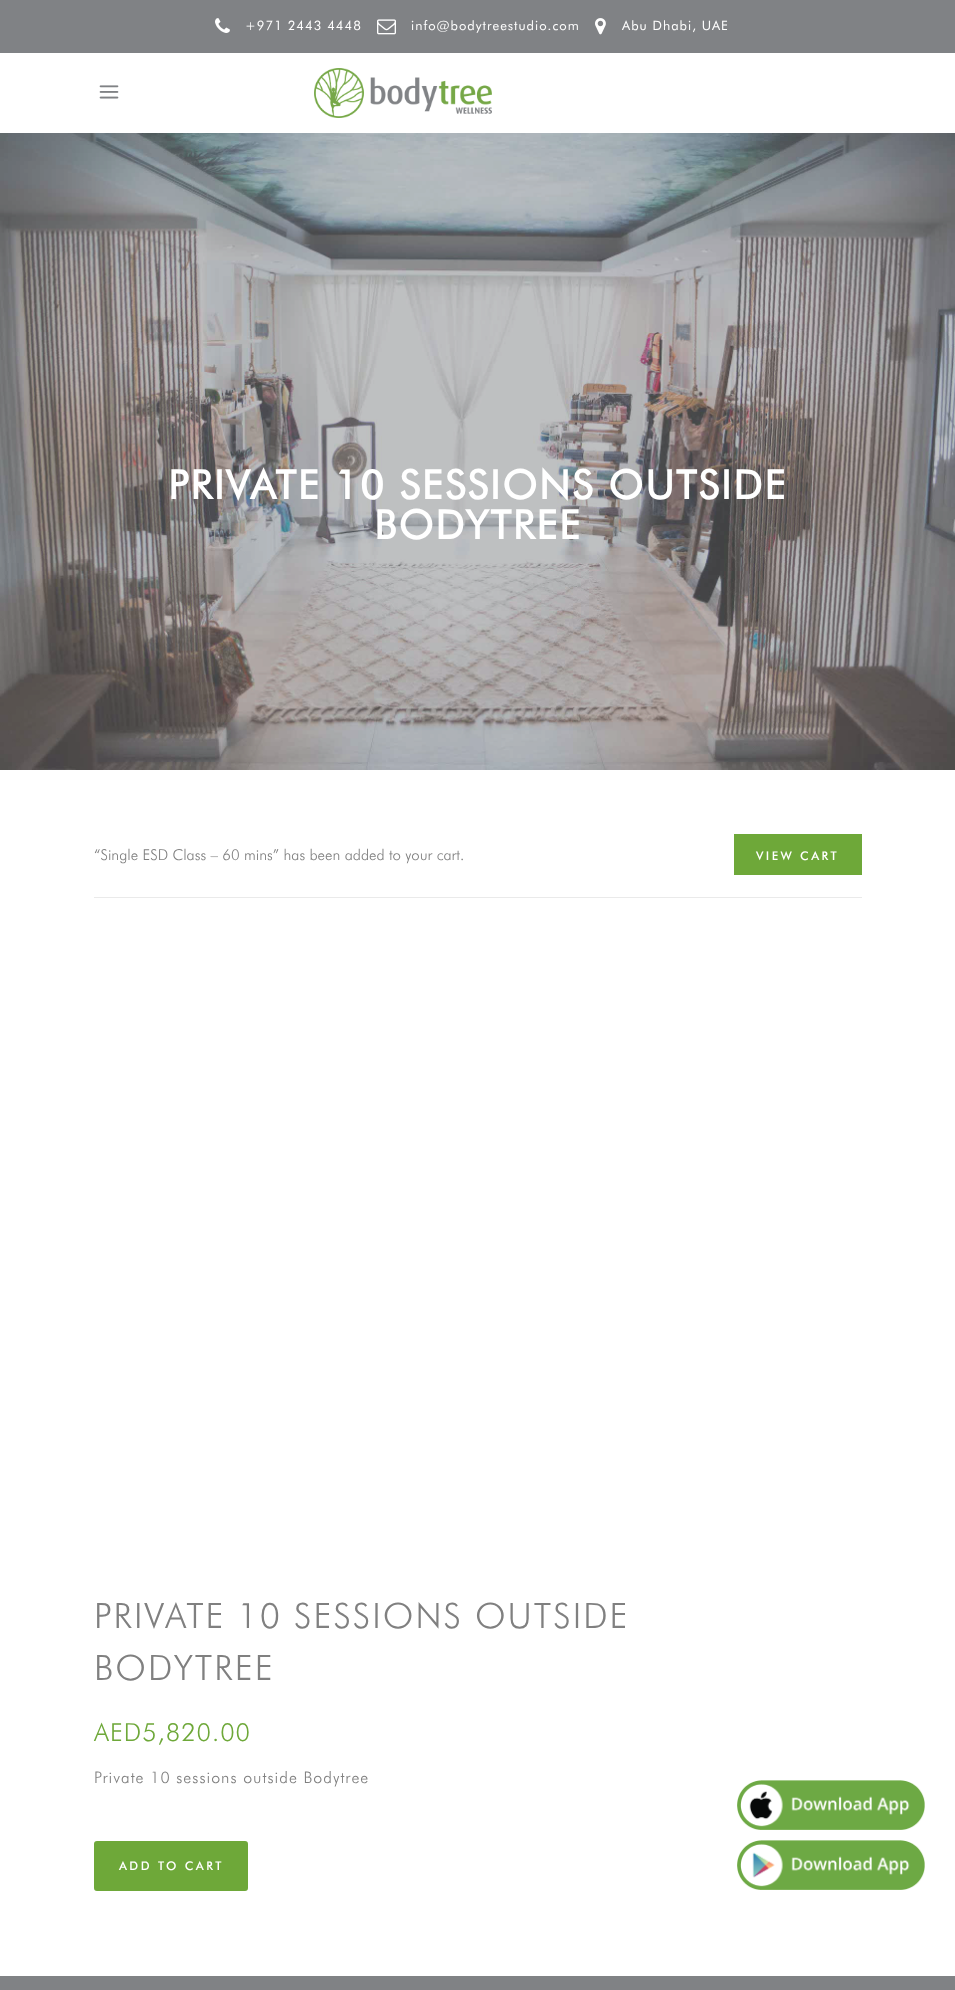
<svg xmlns="http://www.w3.org/2000/svg" width="955" height="1990">
<rect width="100%" height="100%" fill="#fff"/>
<rect width="955" height="53" fill="#808285"/>
<image x="215" y="18" width="15" height="15" href="media/1.png"/>
<text x="245" y="30" style="font-family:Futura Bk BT;font-size:13px;letter-spacing:1px;fill:#fff">+971 2443 4448</text>
<image x="377" y="19" width="19" height="16" href="media/2.png"/>
<text x="411" y="30" style="font-family:Futura Bk BT;font-size:13px;letter-spacing:1px;fill:#fff">info@bodytreestudio.com</text>
<image x="595" y="18" width="11" height="17" href="media/3.png"/>
<text x="622" y="30" style="font-family:Futura Bk BT;font-size:13px;letter-spacing:1px;fill:#fff">Abu Dhabi, UAE</text>
<image x="99" y="85" width="20" height="14" href="media/4.png"/>
<image x="314" y="68" width="178" height="50" href="media/5.png"/>
<image x="0" y="133" width="955" height="637" href="media/6.png"/>
<text x="168" y="499" style="font-family:Futura Bk BT;font-size:40px;font-weight:bold;letter-spacing:2px;fill:#fff">PRIVATE 10 SESSIONS OUTSIDE</text>
<text x="374" y="539" style="font-family:Futura Bk BT;font-size:40px;font-weight:bold;letter-spacing:2px;fill:#fff">BODYTREE</text>
<rect x="94" y="897" width="768" height="1" fill="#eaeaea"/>
<text x="94" y="860" style="font-family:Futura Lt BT;font-size:15px;font-weight:300;fill:#808080">“Single ESD Class – 60 mins” has been added to your cart.</text>
<rect x="734" y="834" width="128" height="41" fill="#6ea839"/>
<text x="756" y="860" style="font-family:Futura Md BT;font-size:12px;font-weight:500;letter-spacing:2.4px;fill:#fff">VIEW CART</text>
<text x="94" y="1628" style="font-family:Futura Lt BT;font-size:35px;font-weight:300;letter-spacing:2px;fill:#808080">PRIVATE 10 SESSIONS OUTSIDE</text>
<text x="94" y="1680" style="font-family:Futura Lt BT;font-size:35px;font-weight:300;letter-spacing:2px;fill:#808080">BODYTREE</text>
<text x="94" y="1741" style="font-family:Futura Lt BT;font-size:25px;font-weight:300;letter-spacing:1px;fill:#6ea839">AED5,820.00</text>
<text x="94" y="1783" style="font-family:Futura Lt BT;font-size:16px;font-weight:300;letter-spacing:1px;fill:#808080">Private 10 sessions outside Bodytree</text>
<rect x="95" y="1842" width="152" height="48" rx="2" fill="#6ea839" stroke="#6ea839" stroke-width="2"/>
<text x="119" y="1870" style="font-family:Futura Md BT;font-size:12px;font-weight:500;letter-spacing:2.4px;fill:#fff">ADD TO CART</text>
<rect y="1976" width="955" height="14" fill="#808285"/>
<image x="737" y="1780" width="188" height="50" href="media/7.png"/>
<image x="737" y="1840" width="188" height="50" href="media/8.png"/>
</svg>
